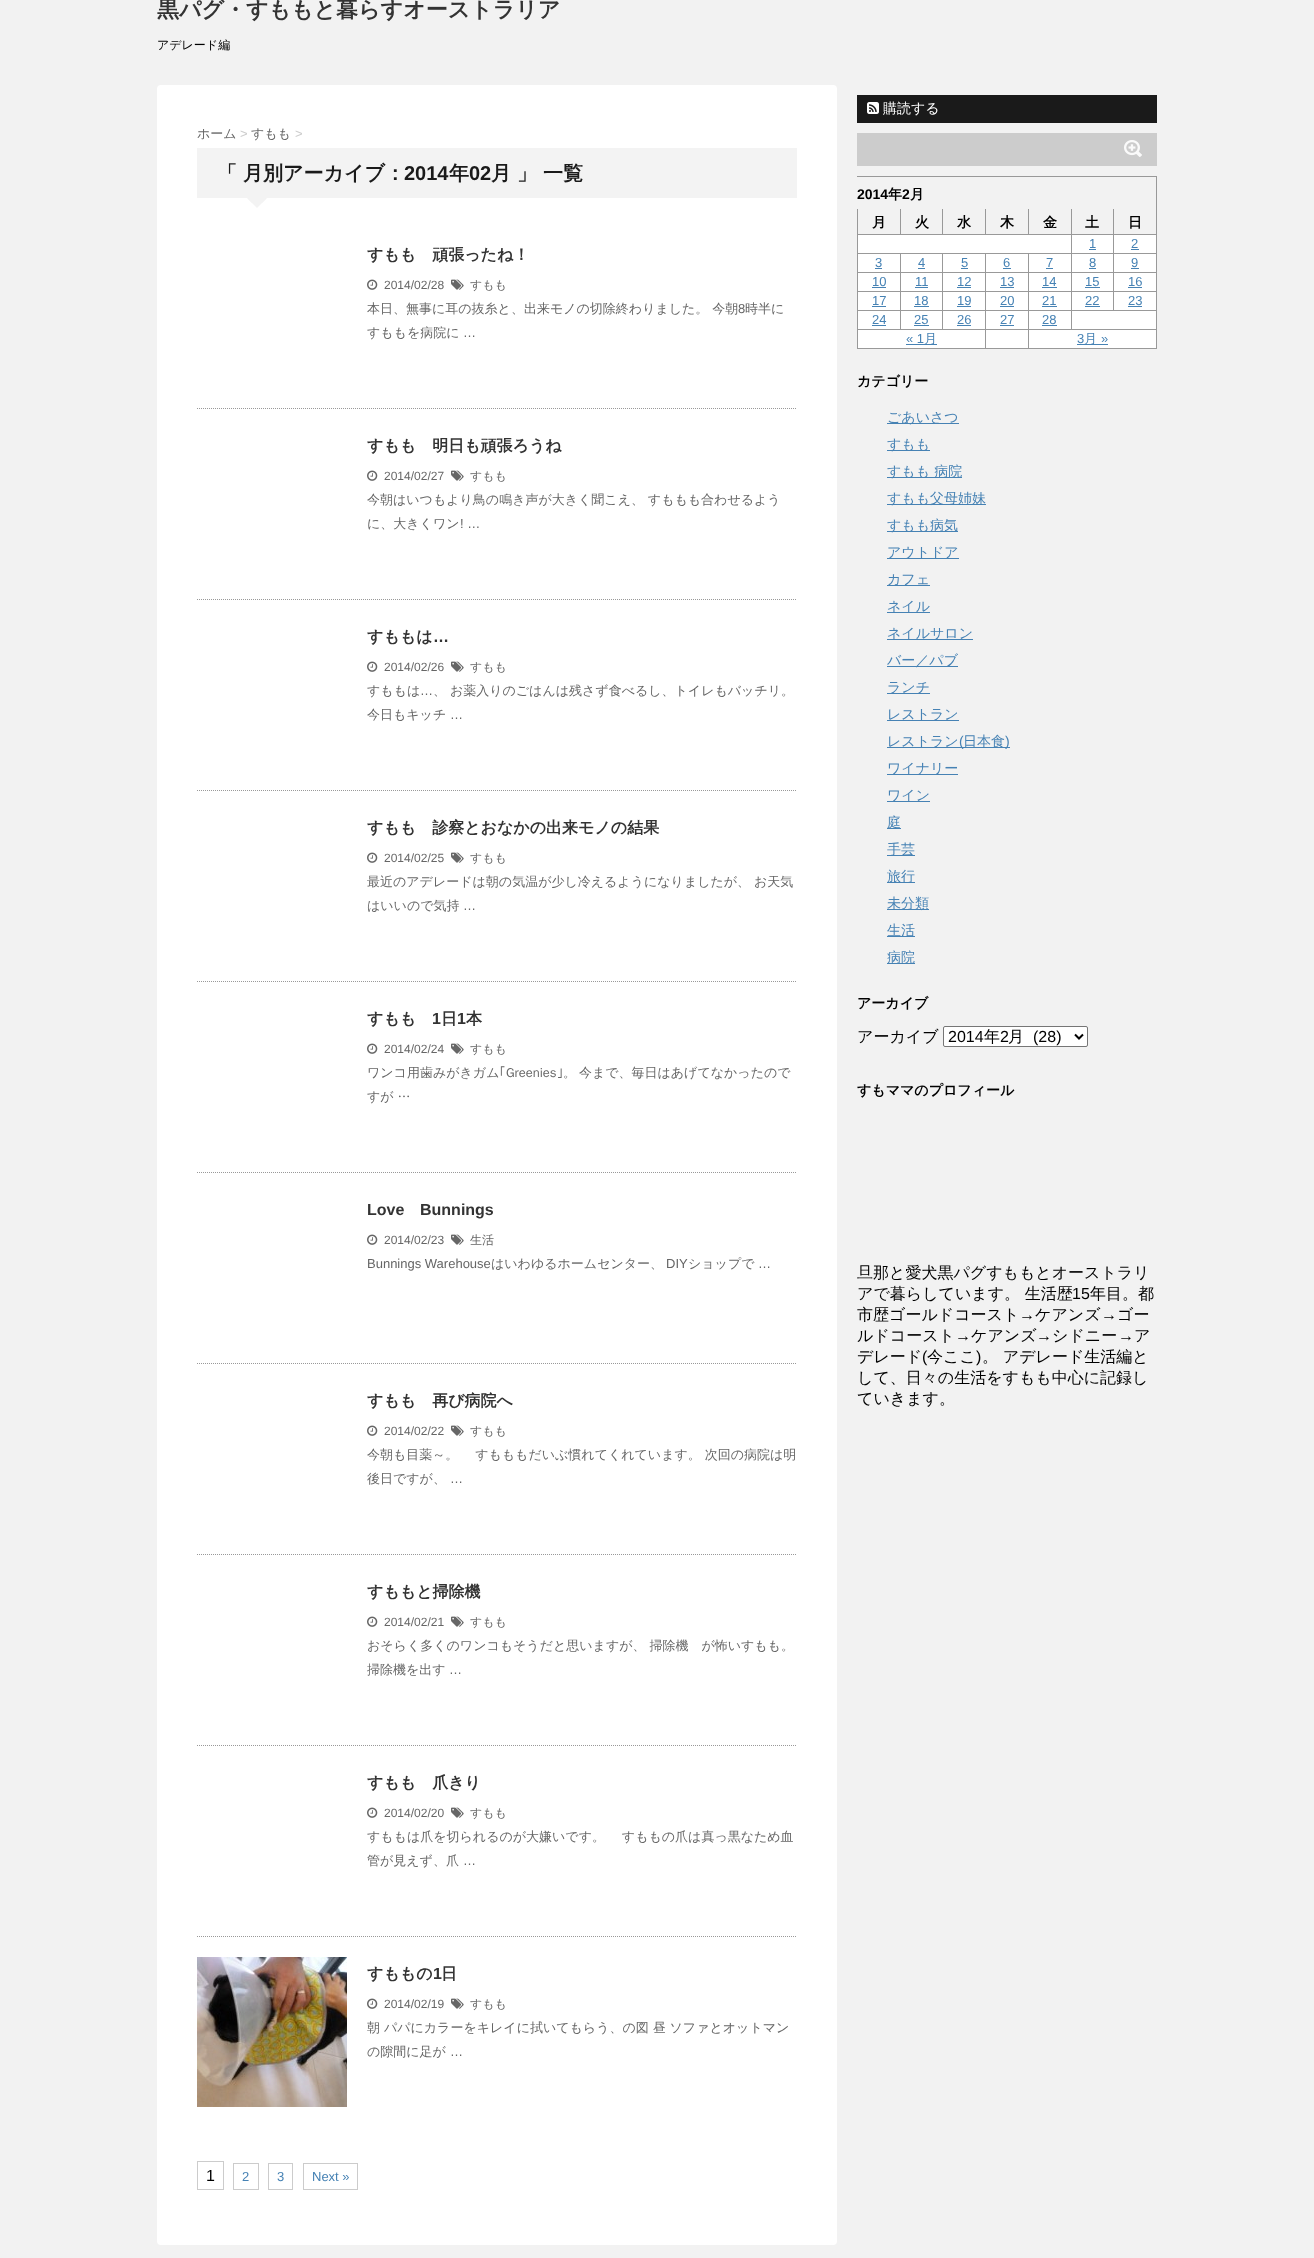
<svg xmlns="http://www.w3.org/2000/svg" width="1314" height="2258">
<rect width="100%" height="100%" fill="#f2f2f2"/>
<text x="157" y="17" style="font-family:WenQuanYi Zen Hei;font-size:22px;font-weight:bold;fill:#333">黒パグ・すももと暮らすオーストラリア</text>
<text x="157" y="49" style="font-family:WenQuanYi Zen Hei;font-size:12px;font-weight:500;fill:#000">アデレード編</text>
<rect x="157" y="85" width="680" height="2160" rx="4" fill="#fff"/>
<text x="197" y="138" style="font-family:WenQuanYi Zen Hei;font-size:13px;font-weight:500;fill:#666">ホーム</text>
<text x="240" y="138" style="font-family:Liberation Sans;font-size:13px;fill:#ccc">&gt;</text>
<text x="251" y="138" style="font-family:WenQuanYi Zen Hei;font-size:13px;font-weight:500;fill:#666">すもも</text>
<text x="295" y="138" style="font-family:Liberation Sans;font-size:13px;fill:#ccc">&gt;</text>
<rect x="197" y="148" width="600" height="50" fill="#f3f3f3"/>
<text x="217" y="180" style="font-family:WenQuanYi Zen Hei;font-size:20px;font-weight:bold;fill:#1a1a1a">「</text>
<text x="243" y="180" style="font-family:WenQuanYi Zen Hei;font-size:20px;font-weight:bold;fill:#1a1a1a">月別アーカイブ：</text>
<text x="404" y="180" style="font-family:Liberation Sans;font-size:20px;font-weight:bold;fill:#1a1a1a">2014</text>
<text x="449" y="180" style="font-family:WenQuanYi Zen Hei;font-size:20px;font-weight:bold;fill:#1a1a1a">年</text>
<text x="469" y="180" style="font-family:Liberation Sans;font-size:20px;font-weight:bold;fill:#1a1a1a">02</text>
<text x="491" y="180" style="font-family:WenQuanYi Zen Hei;font-size:20px;font-weight:bold;fill:#1a1a1a">月</text>
<text x="517" y="180" style="font-family:WenQuanYi Zen Hei;font-size:20px;font-weight:bold;fill:#1a1a1a">」 一覧</text>
<path d="M247 198h20l-10 10z" fill="#f3f3f3"/>
<path d="M249 198l-1.5 .5l4.5 4.5h10l4.5-4.5l-1.5-.5z" fill="#f3f3f3"/>
<path d="M197 408.5h600" fill="none" stroke="#999" stroke-dasharray="1 1"/>
<text x="367" y="260" style="font-family:WenQuanYi Zen Hei;font-size:16px;font-weight:bold;fill:#333">すもも　頑張ったね！</text>
<image x="367" y="279" width="11" height="11" href="media/1.png"/>
<text x="384" y="289" style="font-family:Liberation Sans;font-size:12px;fill:#666">2014/02/28</text>
<image x="451" y="279" width="13" height="11" href="media/2.png"/>
<text x="470" y="289" style="font-family:WenQuanYi Zen Hei;font-size:12px;font-weight:500;fill:#666">すもも</text>
<text x="367" y="313" style="font-family:WenQuanYi Zen Hei;font-size:13px;font-weight:500;fill:#666">本日、無事に耳の抜糸と、出来モノの切除終わりました。 今朝</text>
<text x="738" y="313" style="font-family:Liberation Sans;font-size:13px;fill:#666">8</text>
<text x="745" y="313" style="font-family:WenQuanYi Zen Hei;font-size:13px;font-weight:500;fill:#666">時半に</text>
<text x="367" y="337" style="font-family:WenQuanYi Zen Hei;font-size:13px;font-weight:500;fill:#666">すももを病院に</text>
<text x="463" y="337" style="font-family:Liberation Sans;font-size:13px;fill:#666">…</text>
<path d="M197 599.5h600" fill="none" stroke="#999" stroke-dasharray="1 1"/>
<text x="367" y="451" style="font-family:WenQuanYi Zen Hei;font-size:16px;font-weight:bold;fill:#333">すもも　明日も頑張ろうね</text>
<image x="367" y="470" width="11" height="11" href="media/1.png"/>
<text x="384" y="480" style="font-family:Liberation Sans;font-size:12px;fill:#666">2014/02/27</text>
<image x="451" y="470" width="13" height="11" href="media/2.png"/>
<text x="470" y="480" style="font-family:WenQuanYi Zen Hei;font-size:12px;font-weight:500;fill:#666">すもも</text>
<text x="367" y="504" style="font-family:WenQuanYi Zen Hei;font-size:13px;font-weight:500;fill:#666">今朝はいつもより鳥の鳴き声が大きく聞こえ、 すももも合わせるよう</text>
<text x="367" y="528" style="font-family:WenQuanYi Zen Hei;font-size:13px;font-weight:500;fill:#666">に、大きくワン</text>
<text x="460" y="528" style="font-family:Liberation Sans;font-size:13px;fill:#666">! …</text>
<path d="M197 790.5h600" fill="none" stroke="#999" stroke-dasharray="1 1"/>
<text x="367" y="642" style="font-family:WenQuanYi Zen Hei;font-size:16px;font-weight:bold;fill:#333">すももは</text>
<text x="433" y="642" style="font-family:Liberation Sans;font-size:16px;font-weight:bold;fill:#333">…</text>
<image x="367" y="661" width="11" height="11" href="media/1.png"/>
<text x="384" y="671" style="font-family:Liberation Sans;font-size:12px;fill:#666">2014/02/26</text>
<image x="451" y="661" width="13" height="11" href="media/2.png"/>
<text x="470" y="671" style="font-family:WenQuanYi Zen Hei;font-size:12px;font-weight:500;fill:#666">すもも</text>
<text x="367" y="695" style="font-family:WenQuanYi Zen Hei;font-size:13px;font-weight:500;fill:#666">すももは</text>
<text x="420" y="695" style="font-family:Liberation Sans;font-size:13px;fill:#666">…</text>
<text x="433" y="695" style="font-family:WenQuanYi Zen Hei;font-size:13px;font-weight:500;fill:#666">、 お薬入りのごはんは残さず食べるし、トイレもバッチリ。</text>
<text x="367" y="719" style="font-family:WenQuanYi Zen Hei;font-size:13px;font-weight:500;fill:#666">今日もキッチ</text>
<text x="450" y="719" style="font-family:Liberation Sans;font-size:13px;fill:#666">…</text>
<path d="M197 981.5h600" fill="none" stroke="#999" stroke-dasharray="1 1"/>
<text x="367" y="833" style="font-family:WenQuanYi Zen Hei;font-size:16px;font-weight:bold;fill:#333">すもも　診察とおなかの出来モノの結果</text>
<image x="367" y="852" width="11" height="11" href="media/1.png"/>
<text x="384" y="862" style="font-family:Liberation Sans;font-size:12px;fill:#666">2014/02/25</text>
<image x="451" y="852" width="13" height="11" href="media/2.png"/>
<text x="470" y="862" style="font-family:WenQuanYi Zen Hei;font-size:12px;font-weight:500;fill:#666">すもも</text>
<text x="367" y="886" style="font-family:WenQuanYi Zen Hei;font-size:13px;font-weight:500;fill:#666">最近のアデレードは朝の気温が少し冷えるようになりましたが、 お天気</text>
<text x="367" y="910" style="font-family:WenQuanYi Zen Hei;font-size:13px;font-weight:500;fill:#666">はいいので気持</text>
<text x="463" y="910" style="font-family:Liberation Sans;font-size:13px;fill:#666">…</text>
<path d="M197 1172.5h600" fill="none" stroke="#999" stroke-dasharray="1 1"/>
<text x="367" y="1024" style="font-family:WenQuanYi Zen Hei;font-size:16px;font-weight:bold;fill:#333">すもも</text>
<text x="432" y="1024" style="font-family:Liberation Sans;font-size:16px;font-weight:bold;fill:#333">1</text>
<text x="441" y="1024" style="font-family:WenQuanYi Zen Hei;font-size:16px;font-weight:bold;fill:#333">日</text>
<text x="457" y="1024" style="font-family:Liberation Sans;font-size:16px;font-weight:bold;fill:#333">1</text>
<text x="466" y="1024" style="font-family:WenQuanYi Zen Hei;font-size:16px;font-weight:bold;fill:#333">本</text>
<image x="367" y="1043" width="11" height="11" href="media/1.png"/>
<text x="384" y="1053" style="font-family:Liberation Sans;font-size:12px;fill:#666">2014/02/24</text>
<image x="451" y="1043" width="13" height="11" href="media/2.png"/>
<text x="470" y="1053" style="font-family:WenQuanYi Zen Hei;font-size:12px;font-weight:500;fill:#666">すもも</text>
<text x="367" y="1077" style="font-family:WenQuanYi Zen Hei;font-size:13px;font-weight:500;fill:#666">ワンコ用歯みがきガム</text>
<text x="499" y="1077" style="font-family:IPAPGothic;font-size:13px;fill:#666">｢</text>
<text x="506" y="1077" style="font-family:WenQuanYi Zen Hei;font-size:13px;font-weight:500;fill:#666">Greenies</text>
<text x="557" y="1077" style="font-family:IPAPGothic;font-size:13px;fill:#666">｣</text>
<text x="563" y="1077" word-spacing="-1" style="font-family:WenQuanYi Zen Hei;font-size:13px;font-weight:500;fill:#666">。 今まで、毎日はあげてなかったので</text>
<text x="367" y="1101" style="font-family:WenQuanYi Zen Hei;font-size:13px;font-weight:500;fill:#666">すが …</text>
<path d="M197 1363.5h600" fill="none" stroke="#999" stroke-dasharray="1 1"/>
<text x="367" y="1215" style="font-family:Liberation Sans;font-size:16px;font-weight:bold;fill:#333">Love</text>
<text x="420" y="1215" style="font-family:Liberation Sans;font-size:16px;font-weight:bold;fill:#333">Bunnings</text>
<image x="367" y="1234" width="11" height="11" href="media/1.png"/>
<text x="384" y="1244" style="font-family:Liberation Sans;font-size:12px;fill:#666">2014/02/23</text>
<image x="451" y="1234" width="13" height="11" href="media/2.png"/>
<text x="470" y="1244" style="font-family:WenQuanYi Zen Hei;font-size:12px;font-weight:500;fill:#666">生活</text>
<text x="367" y="1268" style="font-family:Liberation Sans;font-size:13px;fill:#666">Bunnings Warehouse</text>
<text x="491" y="1268" style="font-family:WenQuanYi Zen Hei;font-size:13px;font-weight:500;fill:#666">はいわゆるホームセンター、</text>
<text x="666" y="1268" style="font-family:Liberation Sans;font-size:13px;fill:#666">DIY</text>
<text x="688" y="1268" style="font-family:WenQuanYi Zen Hei;font-size:13px;font-weight:500;fill:#666">ショップで</text>
<text x="758" y="1268" style="font-family:Liberation Sans;font-size:13px;fill:#666">…</text>
<path d="M197 1554.5h600" fill="none" stroke="#999" stroke-dasharray="1 1"/>
<text x="367" y="1406" style="font-family:WenQuanYi Zen Hei;font-size:16px;font-weight:bold;fill:#333">すもも　再び病院へ</text>
<image x="367" y="1425" width="11" height="11" href="media/1.png"/>
<text x="384" y="1435" style="font-family:Liberation Sans;font-size:12px;fill:#666">2014/02/22</text>
<image x="451" y="1425" width="13" height="11" href="media/2.png"/>
<text x="470" y="1435" style="font-family:WenQuanYi Zen Hei;font-size:12px;font-weight:500;fill:#666">すもも</text>
<text x="367" y="1459" style="font-family:WenQuanYi Zen Hei;font-size:13px;font-weight:500;fill:#666">今朝も目薬～。　 すもももだいぶ慣れてくれています。 次回の病院は明</text>
<text x="367" y="1483" style="font-family:WenQuanYi Zen Hei;font-size:13px;font-weight:500;fill:#666">後日ですが、</text>
<text x="450" y="1483" style="font-family:Liberation Sans;font-size:13px;fill:#666">…</text>
<path d="M197 1745.5h600" fill="none" stroke="#999" stroke-dasharray="1 1"/>
<text x="367" y="1597" style="font-family:WenQuanYi Zen Hei;font-size:16px;font-weight:bold;fill:#333">すももと掃除機</text>
<image x="367" y="1616" width="11" height="11" href="media/1.png"/>
<text x="384" y="1626" style="font-family:Liberation Sans;font-size:12px;fill:#666">2014/02/21</text>
<image x="451" y="1616" width="13" height="11" href="media/2.png"/>
<text x="470" y="1626" style="font-family:WenQuanYi Zen Hei;font-size:12px;font-weight:500;fill:#666">すもも</text>
<text x="367" y="1650" style="font-family:WenQuanYi Zen Hei;font-size:13px;font-weight:500;fill:#666">おそらく多くのワンコもそうだと思いますが、 掃除機　が怖いすもも。</text>
<text x="367" y="1674" style="font-family:WenQuanYi Zen Hei;font-size:13px;font-weight:500;fill:#666">掃除機を出す</text>
<text x="449" y="1674" style="font-family:Liberation Sans;font-size:13px;fill:#666">…</text>
<path d="M197 1936.5h600" fill="none" stroke="#999" stroke-dasharray="1 1"/>
<text x="367" y="1788" style="font-family:WenQuanYi Zen Hei;font-size:16px;font-weight:bold;fill:#333">すもも　爪きり</text>
<image x="367" y="1807" width="11" height="11" href="media/1.png"/>
<text x="384" y="1817" style="font-family:Liberation Sans;font-size:12px;fill:#666">2014/02/20</text>
<image x="451" y="1807" width="13" height="11" href="media/2.png"/>
<text x="470" y="1817" style="font-family:WenQuanYi Zen Hei;font-size:12px;font-weight:500;fill:#666">すもも</text>
<text x="367" y="1841" style="font-family:WenQuanYi Zen Hei;font-size:13px;font-weight:500;fill:#666">すももは爪を切られるのが大嫌いです。　 すももの爪は真っ黒なため血</text>
<text x="367" y="1865" style="font-family:WenQuanYi Zen Hei;font-size:13px;font-weight:500;fill:#666">管が見えず、爪</text>
<text x="463" y="1865" style="font-family:Liberation Sans;font-size:13px;fill:#666">…</text>
<image x="197" y="1957" width="150" height="150" href="media/3.png"/>
<text x="367" y="1979" style="font-family:WenQuanYi Zen Hei;font-size:16px;font-weight:bold;fill:#333">すももの</text>
<text x="433" y="1979" style="font-family:Liberation Sans;font-size:16px;font-weight:bold;fill:#333">1</text>
<text x="441" y="1979" style="font-family:WenQuanYi Zen Hei;font-size:16px;font-weight:bold;fill:#333">日</text>
<image x="367" y="1998" width="11" height="11" href="media/1.png"/>
<text x="384" y="2008" style="font-family:Liberation Sans;font-size:12px;fill:#666">2014/02/19</text>
<image x="451" y="1998" width="13" height="11" href="media/2.png"/>
<text x="470" y="2008" style="font-family:WenQuanYi Zen Hei;font-size:12px;font-weight:500;fill:#666">すもも</text>
<text x="367" y="2032" style="font-family:WenQuanYi Zen Hei;font-size:13px;font-weight:500;fill:#666">朝 パパにカラーをキレイに拭いてもらう、の図 昼 ソファとオットマン</text>
<text x="367" y="2056" style="font-family:WenQuanYi Zen Hei;font-size:13px;font-weight:500;fill:#666">の隙間に足が</text>
<text x="450" y="2056" style="font-family:Liberation Sans;font-size:13px;fill:#666">…</text>
<rect x="197.5" y="2161.5" width="26" height="28" fill="none" stroke="#ccc"/>
<text x="206" y="2181" style="font-family:Liberation Sans;font-size:16px;fill:#000">1</text>
<rect x="233.5" y="2163.5" width="25" height="26" fill="none" stroke="#ccc"/>
<text x="242" y="2181" style="font-family:Liberation Sans;font-size:13px;fill:#4682b4">2</text>
<rect x="268.5" y="2163.5" width="24" height="26" fill="none" stroke="#ccc"/>
<text x="277" y="2181" style="font-family:Liberation Sans;font-size:13px;fill:#4682b4">3</text>
<rect x="303.5" y="2163.5" width="54" height="26" fill="none" stroke="#ccc"/>
<text x="312" y="2181" style="font-family:Liberation Sans;font-size:13px;fill:#4682b4">Next »</text>
<rect x="857" y="95" width="300" height="28" fill="#1a1a1a"/>
<image x="867" y="102" width="12" height="12" href="media/4.png"/>
<text x="883" y="113" style="font-family:WenQuanYi Zen Hei;font-size:14px;font-weight:500;fill:#fff">購読する</text>
<rect x="857" y="133" width="300" height="33" fill="#ccc"/>
<image x="1124" y="140" width="18" height="17" href="media/5.png"/>
<rect x="857" y="176" width="300" height="1" fill="#999"/>
<rect x="1156" y="176" width="1" height="173" fill="#999"/>
<text x="857" y="199" style="font-family:Liberation Sans;font-size:14px;font-weight:bold;fill:#000">2014</text>
<text x="888" y="199" style="font-family:WenQuanYi Zen Hei;font-size:14px;font-weight:bold;fill:#000">年</text>
<text x="902" y="199" style="font-family:Liberation Sans;font-size:14px;font-weight:bold;fill:#000">2</text>
<text x="910" y="199" style="font-family:WenQuanYi Zen Hei;font-size:14px;font-weight:bold;fill:#000">月</text>
<rect x="1113" y="310" width="44" height="1" fill="#999"/>
<rect x="1113" y="291" width="1" height="20" fill="#999"/>
<rect x="1113" y="291" width="44" height="1" fill="#999"/>
<rect x="1113" y="272" width="1" height="20" fill="#999"/>
<rect x="1113" y="272" width="44" height="1" fill="#999"/>
<rect x="1113" y="253" width="1" height="20" fill="#999"/>
<rect x="1113" y="253" width="44" height="1" fill="#999"/>
<rect x="1113" y="234" width="1" height="20" fill="#999"/>
<rect x="1113" y="234" width="44" height="1" fill="#999"/>
<rect x="1113" y="209" width="1" height="26" fill="#999"/>
<rect x="1071" y="329" width="86" height="1" fill="#999"/>
<rect x="1071" y="310" width="1" height="20" fill="#999"/>
<rect x="1071" y="310" width="43" height="1" fill="#999"/>
<rect x="1071" y="291" width="1" height="20" fill="#999"/>
<rect x="1071" y="291" width="43" height="1" fill="#999"/>
<rect x="1071" y="272" width="1" height="20" fill="#999"/>
<rect x="1071" y="272" width="43" height="1" fill="#999"/>
<rect x="1071" y="253" width="1" height="20" fill="#999"/>
<rect x="1071" y="253" width="43" height="1" fill="#999"/>
<rect x="1071" y="234" width="1" height="20" fill="#999"/>
<rect x="1071" y="234" width="43" height="1" fill="#999"/>
<rect x="1071" y="209" width="1" height="26" fill="#999"/>
<rect x="1028" y="234" width="44" height="1" fill="#999"/>
<rect x="1028" y="209" width="1" height="26" fill="#999"/>
<rect x="985" y="234" width="44" height="1" fill="#999"/>
<rect x="985" y="209" width="1" height="26" fill="#999"/>
<rect x="942" y="234" width="44" height="1" fill="#999"/>
<rect x="942" y="209" width="1" height="26" fill="#999"/>
<rect x="900" y="234" width="43" height="1" fill="#999"/>
<rect x="900" y="209" width="1" height="26" fill="#999"/>
<rect x="1028" y="329" width="44" height="1" fill="#999"/>
<rect x="1028" y="310" width="1" height="20" fill="#999"/>
<rect x="1028" y="310" width="44" height="1" fill="#999"/>
<rect x="1028" y="291" width="1" height="20" fill="#999"/>
<rect x="1028" y="291" width="44" height="1" fill="#999"/>
<rect x="1028" y="272" width="1" height="20" fill="#999"/>
<rect x="1028" y="272" width="44" height="1" fill="#999"/>
<rect x="1028" y="253" width="1" height="20" fill="#999"/>
<rect x="985" y="329" width="44" height="1" fill="#999"/>
<rect x="985" y="310" width="1" height="20" fill="#999"/>
<rect x="985" y="310" width="44" height="1" fill="#999"/>
<rect x="985" y="291" width="1" height="20" fill="#999"/>
<rect x="985" y="291" width="44" height="1" fill="#999"/>
<rect x="985" y="272" width="1" height="20" fill="#999"/>
<rect x="985" y="272" width="44" height="1" fill="#999"/>
<rect x="985" y="253" width="1" height="20" fill="#999"/>
<rect x="942" y="329" width="44" height="1" fill="#999"/>
<rect x="942" y="310" width="1" height="20" fill="#999"/>
<rect x="942" y="310" width="44" height="1" fill="#999"/>
<rect x="942" y="291" width="1" height="20" fill="#999"/>
<rect x="942" y="291" width="44" height="1" fill="#999"/>
<rect x="942" y="272" width="1" height="20" fill="#999"/>
<rect x="942" y="272" width="44" height="1" fill="#999"/>
<rect x="942" y="253" width="1" height="20" fill="#999"/>
<rect x="900" y="329" width="43" height="1" fill="#999"/>
<rect x="900" y="310" width="1" height="20" fill="#999"/>
<rect x="900" y="310" width="43" height="1" fill="#999"/>
<rect x="900" y="291" width="1" height="20" fill="#999"/>
<rect x="900" y="291" width="43" height="1" fill="#999"/>
<rect x="900" y="272" width="1" height="20" fill="#999"/>
<rect x="900" y="272" width="43" height="1" fill="#999"/>
<rect x="900" y="253" width="1" height="20" fill="#999"/>
<rect x="857" y="329" width="44" height="1" fill="#999"/>
<rect x="857" y="310" width="1" height="20" fill="#999"/>
<rect x="857" y="310" width="44" height="1" fill="#999"/>
<rect x="857" y="291" width="1" height="20" fill="#999"/>
<rect x="857" y="291" width="44" height="1" fill="#999"/>
<rect x="857" y="272" width="1" height="20" fill="#999"/>
<rect x="857" y="272" width="44" height="1" fill="#999"/>
<rect x="857" y="253" width="1" height="20" fill="#999"/>
<rect x="857" y="253" width="215" height="1" fill="#999"/>
<rect x="857" y="234" width="1" height="20" fill="#999"/>
<rect x="857" y="234" width="44" height="1" fill="#999"/>
<rect x="857" y="209" width="1" height="26" fill="#999"/>
<text x="872" y="227" style="font-family:WenQuanYi Zen Hei;font-size:14px;font-weight:bold;fill:#000">月</text>
<text x="915" y="227" style="font-family:WenQuanYi Zen Hei;font-size:14px;font-weight:bold;fill:#000">火</text>
<text x="957" y="227" style="font-family:WenQuanYi Zen Hei;font-size:14px;font-weight:bold;fill:#000">水</text>
<text x="1000" y="227" style="font-family:WenQuanYi Zen Hei;font-size:14px;font-weight:bold;fill:#000">木</text>
<text x="1043" y="227" style="font-family:WenQuanYi Zen Hei;font-size:14px;font-weight:bold;fill:#000">金</text>
<text x="1085" y="227" style="font-family:WenQuanYi Zen Hei;font-size:14px;font-weight:bold;fill:#000">土</text>
<text x="1128" y="227" style="font-family:WenQuanYi Zen Hei;font-size:14px;font-weight:bold;fill:#000">日</text>
<rect x="858" y="235" width="213" height="18" fill="#fff"/>
<rect x="1072" y="235" width="41" height="18" fill="#fff"/>
<text x="1089" y="248" style="font-family:Liberation Sans;font-size:13px;fill:#4682b4">1</text>
<rect x="1089" y="249" width="7" height="1" fill="#4682b4"/>
<rect x="1114" y="235" width="42" height="18" fill="#fff"/>
<text x="1131" y="248" style="font-family:Liberation Sans;font-size:13px;fill:#4682b4">2</text>
<rect x="1131" y="249" width="8" height="1" fill="#4682b4"/>
<rect x="858" y="254" width="42" height="18" fill="#fff"/>
<text x="875" y="267" style="font-family:Liberation Sans;font-size:13px;fill:#4682b4">3</text>
<rect x="875" y="268" width="7" height="1" fill="#4682b4"/>
<rect x="901" y="254" width="41" height="18" fill="#fff"/>
<text x="918" y="267" style="font-family:Liberation Sans;font-size:13px;fill:#4682b4">4</text>
<rect x="918" y="268" width="7" height="1" fill="#4682b4"/>
<rect x="943" y="254" width="42" height="18" fill="#fff"/>
<text x="961" y="267" style="font-family:Liberation Sans;font-size:13px;fill:#4682b4">5</text>
<rect x="961" y="268" width="7" height="1" fill="#4682b4"/>
<rect x="986" y="254" width="42" height="18" fill="#fff"/>
<text x="1003" y="267" style="font-family:Liberation Sans;font-size:13px;fill:#4682b4">6</text>
<rect x="1003" y="268" width="8" height="1" fill="#4682b4"/>
<rect x="1029" y="254" width="42" height="18" fill="#fff"/>
<text x="1046" y="267" style="font-family:Liberation Sans;font-size:13px;fill:#4682b4">7</text>
<rect x="1046" y="268" width="7" height="1" fill="#4682b4"/>
<rect x="1072" y="254" width="41" height="18" fill="#fff"/>
<text x="1089" y="267" style="font-family:Liberation Sans;font-size:13px;fill:#4682b4">8</text>
<rect x="1089" y="268" width="7" height="1" fill="#4682b4"/>
<rect x="1114" y="254" width="42" height="18" fill="#fff"/>
<text x="1131" y="267" style="font-family:Liberation Sans;font-size:13px;fill:#4682b4">9</text>
<rect x="1131" y="268" width="8" height="1" fill="#4682b4"/>
<rect x="858" y="273" width="42" height="18" fill="#fff"/>
<text x="872" y="286" style="font-family:Liberation Sans;font-size:13px;fill:#4682b4">10</text>
<rect x="872" y="287" width="14" height="1" fill="#4682b4"/>
<rect x="901" y="273" width="41" height="18" fill="#fff"/>
<text x="915" y="286" style="font-family:Liberation Sans;font-size:13px;fill:#4682b4">11</text>
<rect x="915" y="287" width="13" height="1" fill="#4682b4"/>
<rect x="943" y="273" width="42" height="18" fill="#fff"/>
<text x="957" y="286" style="font-family:Liberation Sans;font-size:13px;fill:#4682b4">12</text>
<rect x="957" y="287" width="14" height="1" fill="#4682b4"/>
<rect x="986" y="273" width="42" height="18" fill="#fff"/>
<text x="1000" y="286" style="font-family:Liberation Sans;font-size:13px;fill:#4682b4">13</text>
<rect x="1000" y="287" width="14" height="1" fill="#4682b4"/>
<rect x="1029" y="273" width="42" height="18" fill="#fff"/>
<text x="1042" y="286" style="font-family:Liberation Sans;font-size:13px;fill:#4682b4">14</text>
<rect x="1042" y="287" width="15" height="1" fill="#4682b4"/>
<rect x="1072" y="273" width="41" height="18" fill="#fff"/>
<text x="1085" y="286" style="font-family:Liberation Sans;font-size:13px;fill:#4682b4">15</text>
<rect x="1085" y="287" width="15" height="1" fill="#4682b4"/>
<rect x="1114" y="273" width="42" height="18" fill="#fff"/>
<text x="1128" y="286" style="font-family:Liberation Sans;font-size:13px;fill:#4682b4">16</text>
<rect x="1128" y="287" width="14" height="1" fill="#4682b4"/>
<rect x="858" y="292" width="42" height="18" fill="#fff"/>
<text x="872" y="305" style="font-family:Liberation Sans;font-size:13px;fill:#4682b4">17</text>
<rect x="872" y="306" width="14" height="1" fill="#4682b4"/>
<rect x="901" y="292" width="41" height="18" fill="#fff"/>
<text x="914" y="305" style="font-family:Liberation Sans;font-size:13px;fill:#4682b4">18</text>
<rect x="914" y="306" width="15" height="1" fill="#4682b4"/>
<rect x="943" y="292" width="42" height="18" fill="#fff"/>
<text x="957" y="305" style="font-family:Liberation Sans;font-size:13px;fill:#4682b4">19</text>
<rect x="957" y="306" width="14" height="1" fill="#4682b4"/>
<rect x="986" y="292" width="42" height="18" fill="#fff"/>
<text x="1000" y="305" style="font-family:Liberation Sans;font-size:13px;fill:#4682b4">20</text>
<rect x="1000" y="306" width="14" height="1" fill="#4682b4"/>
<rect x="1029" y="292" width="42" height="18" fill="#fff"/>
<text x="1042" y="305" style="font-family:Liberation Sans;font-size:13px;fill:#4682b4">21</text>
<rect x="1042" y="306" width="15" height="1" fill="#4682b4"/>
<rect x="1072" y="292" width="41" height="18" fill="#fff"/>
<text x="1085" y="305" style="font-family:Liberation Sans;font-size:13px;fill:#4682b4">22</text>
<rect x="1085" y="306" width="15" height="1" fill="#4682b4"/>
<rect x="1114" y="292" width="42" height="18" fill="#fff"/>
<text x="1128" y="305" style="font-family:Liberation Sans;font-size:13px;fill:#4682b4">23</text>
<rect x="1128" y="306" width="14" height="1" fill="#4682b4"/>
<rect x="858" y="311" width="42" height="18" fill="#fff"/>
<text x="872" y="324" style="font-family:Liberation Sans;font-size:13px;fill:#4682b4">24</text>
<rect x="872" y="325" width="14" height="1" fill="#4682b4"/>
<rect x="901" y="311" width="41" height="18" fill="#fff"/>
<text x="914" y="324" style="font-family:Liberation Sans;font-size:13px;fill:#4682b4">25</text>
<rect x="914" y="325" width="15" height="1" fill="#4682b4"/>
<rect x="943" y="311" width="42" height="18" fill="#fff"/>
<text x="957" y="324" style="font-family:Liberation Sans;font-size:13px;fill:#4682b4">26</text>
<rect x="957" y="325" width="14" height="1" fill="#4682b4"/>
<rect x="986" y="311" width="42" height="18" fill="#fff"/>
<text x="1000" y="324" style="font-family:Liberation Sans;font-size:13px;fill:#4682b4">27</text>
<rect x="1000" y="325" width="14" height="1" fill="#4682b4"/>
<rect x="1029" y="311" width="42" height="18" fill="#fff"/>
<text x="1042" y="324" style="font-family:Liberation Sans;font-size:13px;fill:#4682b4">28</text>
<rect x="1042" y="325" width="15" height="1" fill="#4682b4"/>
<rect x="1072" y="311" width="84" height="18" fill="#fff"/>
<rect x="858" y="330" width="127" height="18" fill="#fff"/>
<rect x="1028" y="348" width="129" height="1" fill="#999"/>
<rect x="1028" y="329" width="1" height="20" fill="#999"/>
<rect x="985" y="348" width="44" height="1" fill="#999"/>
<rect x="985" y="329" width="1" height="20" fill="#999"/>
<rect x="857" y="348" width="129" height="1" fill="#999"/>
<rect x="857" y="329" width="1" height="20" fill="#999"/>
<text x="906" y="343" style="font-family:Liberation Sans;font-size:13px;fill:#4682b4">« 1</text>
<rect x="906" y="344" width="31" height="1" fill="#4682b4"/>
<text x="924" y="343" style="font-family:WenQuanYi Zen Hei;font-size:13px;font-weight:500;fill:#4682b4">月</text>
<rect x="986" y="330" width="42" height="18" fill="#fff"/>
<rect x="1029" y="330" width="127" height="18" fill="#fff"/>
<text x="1077" y="343" style="font-family:Liberation Sans;font-size:13px;fill:#4682b4">3</text>
<rect x="1077" y="344" width="31" height="1" fill="#4682b4"/>
<text x="1084" y="343" style="font-family:WenQuanYi Zen Hei;font-size:13px;font-weight:500;fill:#4682b4">月</text>
<text x="1101" y="343" style="font-family:Liberation Sans;font-size:13px;fill:#4682b4">»</text>
<text x="857" y="386" style="font-family:WenQuanYi Zen Hei;font-size:14px;font-weight:bold;fill:#000">カテゴリー</text>
<rect x="887" y="423" width="72" height="1" fill="#4682b4"/>
<text x="887" y="422" style="font-family:WenQuanYi Zen Hei;font-size:14px;font-weight:500;fill:#4682b4">ごあいさつ</text>
<rect x="887" y="450" width="43" height="1" fill="#4682b4"/>
<text x="887" y="449" style="font-family:WenQuanYi Zen Hei;font-size:14px;font-weight:500;fill:#4682b4">すもも</text>
<rect x="887" y="477" width="75" height="1" fill="#4682b4"/>
<text x="887" y="476" style="font-family:WenQuanYi Zen Hei;font-size:14px;font-weight:500;fill:#4682b4">すもも 病院</text>
<rect x="887" y="504" width="99" height="1" fill="#4682b4"/>
<text x="887" y="503" style="font-family:WenQuanYi Zen Hei;font-size:14px;font-weight:500;fill:#4682b4">すもも父母姉妹</text>
<rect x="887" y="531" width="71" height="1" fill="#4682b4"/>
<text x="887" y="530" style="font-family:WenQuanYi Zen Hei;font-size:14px;font-weight:500;fill:#4682b4">すもも病気</text>
<rect x="887" y="558" width="72" height="1" fill="#4682b4"/>
<text x="887" y="557" style="font-family:WenQuanYi Zen Hei;font-size:14px;font-weight:500;fill:#4682b4">アウトドア</text>
<rect x="887" y="585" width="43" height="1" fill="#4682b4"/>
<text x="887" y="584" style="font-family:WenQuanYi Zen Hei;font-size:14px;font-weight:500;fill:#4682b4">カフェ</text>
<rect x="887" y="612" width="43" height="1" fill="#4682b4"/>
<text x="887" y="611" style="font-family:WenQuanYi Zen Hei;font-size:14px;font-weight:500;fill:#4682b4">ネイル</text>
<rect x="887" y="639" width="86" height="1" fill="#4682b4"/>
<text x="887" y="638" style="font-family:WenQuanYi Zen Hei;font-size:14px;font-weight:500;fill:#4682b4">ネイルサロン</text>
<rect x="887" y="666" width="71" height="1" fill="#4682b4"/>
<text x="887" y="665" style="font-family:WenQuanYi Zen Hei;font-size:14px;font-weight:500;fill:#4682b4">バー／パブ</text>
<rect x="887" y="693" width="43" height="1" fill="#4682b4"/>
<text x="887" y="692" style="font-family:WenQuanYi Zen Hei;font-size:14px;font-weight:500;fill:#4682b4">ランチ</text>
<rect x="887" y="720" width="72" height="1" fill="#4682b4"/>
<text x="887" y="719" style="font-family:WenQuanYi Zen Hei;font-size:14px;font-weight:500;fill:#4682b4">レストラン</text>
<rect x="887" y="747" width="123" height="1" fill="#4682b4"/>
<text x="887" y="746" style="font-family:WenQuanYi Zen Hei;font-size:14px;font-weight:500;fill:#4682b4">レストラン</text>
<text x="959" y="746" style="font-family:Liberation Sans;font-size:14px;fill:#4682b4">(</text>
<text x="963" y="746" style="font-family:WenQuanYi Zen Hei;font-size:14px;font-weight:500;fill:#4682b4">日本食</text>
<text x="1005" y="746" style="font-family:Liberation Sans;font-size:14px;fill:#4682b4">)</text>
<rect x="887" y="774" width="71" height="1" fill="#4682b4"/>
<text x="887" y="773" style="font-family:WenQuanYi Zen Hei;font-size:14px;font-weight:500;fill:#4682b4">ワイナリー</text>
<rect x="887" y="801" width="43" height="1" fill="#4682b4"/>
<text x="887" y="800" style="font-family:WenQuanYi Zen Hei;font-size:14px;font-weight:500;fill:#4682b4">ワイン</text>
<rect x="887" y="828" width="14" height="1" fill="#4682b4"/>
<text x="887" y="827" style="font-family:WenQuanYi Zen Hei;font-size:14px;font-weight:500;fill:#4682b4">庭</text>
<rect x="887" y="855" width="28" height="1" fill="#4682b4"/>
<text x="887" y="854" style="font-family:WenQuanYi Zen Hei;font-size:14px;font-weight:500;fill:#4682b4">手芸</text>
<rect x="887" y="882" width="28" height="1" fill="#4682b4"/>
<text x="887" y="881" style="font-family:WenQuanYi Zen Hei;font-size:14px;font-weight:500;fill:#4682b4">旅行</text>
<rect x="887" y="909" width="42" height="1" fill="#4682b4"/>
<text x="887" y="908" style="font-family:WenQuanYi Zen Hei;font-size:14px;font-weight:500;fill:#4682b4">未分類</text>
<rect x="887" y="936" width="28" height="1" fill="#4682b4"/>
<text x="887" y="935" style="font-family:WenQuanYi Zen Hei;font-size:14px;font-weight:500;fill:#4682b4">生活</text>
<rect x="887" y="963" width="28" height="1" fill="#4682b4"/>
<text x="887" y="962" style="font-family:WenQuanYi Zen Hei;font-size:14px;font-weight:500;fill:#4682b4">病院</text>
<text x="857" y="1008" style="font-family:WenQuanYi Zen Hei;font-size:14px;font-weight:bold;fill:#000">アーカイブ</text>
<text x="857" y="1042" style="font-family:WenQuanYi Zen Hei;font-size:16px;font-weight:500;fill:#000">アーカイブ</text>
<rect x="943.5" y="1026.5" width="144" height="20" rx="1.5" fill="#fff" stroke="#767676"/>
<path d="M1075 1034.5l4 4l4-4" fill="none" stroke="#000" stroke-width="2"/>
<text x="948" y="1042" style="font-family:Liberation Sans;font-size:16px;fill:#000">2014</text>
<text x="984" y="1042" style="font-family:WenQuanYi Zen Hei;font-size:16px;font-weight:500;fill:#000">年</text>
<text x="1000" y="1042" style="font-family:Liberation Sans;font-size:16px;fill:#000">2</text>
<text x="1008" y="1042" style="font-family:WenQuanYi Zen Hei;font-size:16px;font-weight:500;fill:#000">月</text>
<text x="1033" y="1042" style="font-family:Liberation Sans;font-size:16px;fill:#000">(28)</text>
<text x="857" y="1095" style="font-family:WenQuanYi Zen Hei;font-size:14px;font-weight:bold;fill:#000">すもママのプロフィール</text>
<text x="857" y="1278" style="font-family:WenQuanYi Zen Hei;font-size:16px;font-weight:500;fill:#000">旦那と愛犬黒パグすももとオーストラリ</text>
<text x="857" y="1299" style="font-family:WenQuanYi Zen Hei;font-size:16px;font-weight:500;fill:#000">アで暮らしています。 生活歴</text>
<text x="1072" y="1299" style="font-family:Liberation Sans;font-size:16px;fill:#000">15</text>
<text x="1090" y="1299" style="font-family:WenQuanYi Zen Hei;font-size:16px;font-weight:500;fill:#000">年目。都</text>
<text x="857" y="1320" style="font-family:WenQuanYi Zen Hei;font-size:16px;font-weight:500;fill:#000">市歴ゴールドコースト</text>
<text x="1019" y="1320" style="font-family:Liberation Sans;font-size:16px;fill:#000">→</text>
<text x="1035" y="1320" style="font-family:WenQuanYi Zen Hei;font-size:16px;font-weight:500;fill:#000">ケアンズ</text>
<text x="1101" y="1320" style="font-family:Liberation Sans;font-size:16px;fill:#000">→</text>
<text x="1117" y="1320" style="font-family:WenQuanYi Zen Hei;font-size:16px;font-weight:500;fill:#000">ゴー</text>
<text x="857" y="1341" style="font-family:WenQuanYi Zen Hei;font-size:16px;font-weight:500;fill:#000">ルドコースト</text>
<text x="955" y="1341" style="font-family:Liberation Sans;font-size:16px;fill:#000">→</text>
<text x="971" y="1341" style="font-family:WenQuanYi Zen Hei;font-size:16px;font-weight:500;fill:#000">ケアンズ</text>
<text x="1036" y="1341" style="font-family:Liberation Sans;font-size:16px;fill:#000">→</text>
<text x="1052" y="1341" style="font-family:WenQuanYi Zen Hei;font-size:16px;font-weight:500;fill:#000">シドニー</text>
<text x="1118" y="1341" style="font-family:Liberation Sans;font-size:16px;fill:#000">→</text>
<text x="1134" y="1341" style="font-family:WenQuanYi Zen Hei;font-size:16px;font-weight:500;fill:#000">ア</text>
<text x="857" y="1362" style="font-family:WenQuanYi Zen Hei;font-size:16px;font-weight:500;fill:#000">デレード</text>
<text x="922" y="1362" style="font-family:Liberation Sans;font-size:16px;fill:#000">(</text>
<text x="927" y="1362" style="font-family:WenQuanYi Zen Hei;font-size:16px;font-weight:500;fill:#000">今ここ</text>
<text x="976" y="1362" style="font-family:Liberation Sans;font-size:16px;fill:#000">)</text>
<text x="982" y="1362" style="font-family:WenQuanYi Zen Hei;font-size:16px;font-weight:500;fill:#000">。 アデレード生活編と</text>
<text x="857" y="1383" style="font-family:WenQuanYi Zen Hei;font-size:16px;font-weight:500;fill:#000">して、日々の生活をすもも中心に記録し</text>
<text x="857" y="1404" style="font-family:WenQuanYi Zen Hei;font-size:16px;font-weight:500;fill:#000">ていきます。</text>
</svg>
